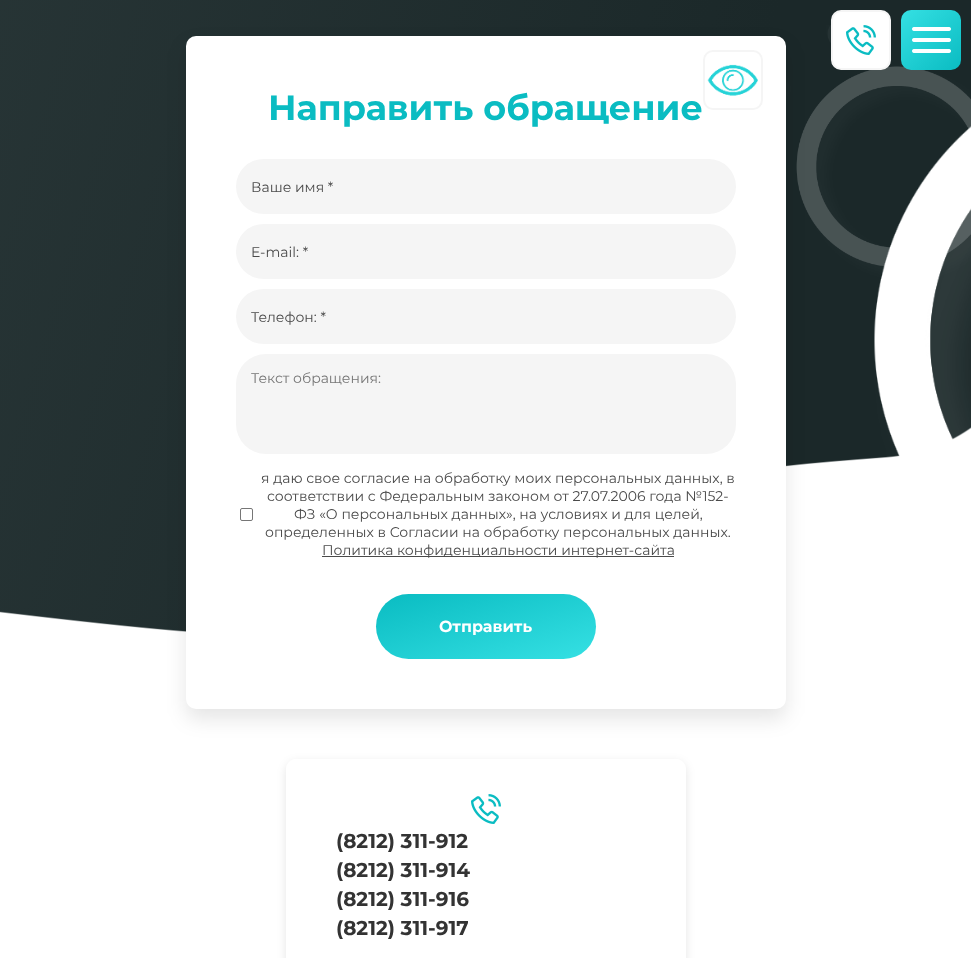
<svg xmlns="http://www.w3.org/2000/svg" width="971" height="958">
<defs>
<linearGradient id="g1" gradientUnits="userSpaceOnUse" x1="468" y1="567" x2="504" y2="686"><stop offset="0" stop-color="#0abcc2"/><stop offset="1" stop-color="#35e0e3"/></linearGradient>
<clipPath id="clip1"><path d="M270 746h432v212h-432zm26 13h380c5.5 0 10 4.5 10 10v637c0 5.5-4.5 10-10 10h-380c-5.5 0-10-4.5-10-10v-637c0-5.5 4.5-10 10-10z" clip-rule="evenodd"/></clipPath>
</defs>
<rect width="100%" height="100%" fill="#fff"/>
<image x="0" y="0" width="971" height="632" href="media/1.png"/>
<image x="0" y="25" width="971" height="714" href="media/5.png"/>
<rect x="832" y="11" width="58" height="58" rx="9" fill="#fff" stroke="#f5f5f5" stroke-width="2"/>
<image x="846" y="25" width="30" height="30" href="media/2.png"/>
<image x="901" y="10" width="60" height="60" href="media/3.png"/>
<rect x="186" y="46" width="600" height="673" rx="10" fill="#0000001a" filter="blur(10px)"/>
<rect x="186" y="36" width="600" height="673" rx="10" fill="#fff"/>
<rect x="704" y="51" width="58" height="58" rx="9" fill="none" stroke="#f5f5f5" stroke-width="2"/>
<image x="707" y="64" width="51" height="32" href="media/4.png"/>
<text x="268" y="120" style="font-family:Montserrat;font-size:35px;font-weight:bold;fill:#0abcc2">Направить обращение</text>
<rect x="236" y="159" width="500" height="55" rx="27.5" fill="#f5f5f5"/>
<text x="251" y="192" style="font-family:Montserrat;font-size:14px;fill:#4a4a4a">Ваше имя *</text>
<rect x="236" y="224" width="500" height="55" rx="27.5" fill="#f5f5f5"/>
<text x="251" y="257" style="font-family:Montserrat;font-size:14px;fill:#4a4a4a">E-mail: *</text>
<rect x="236" y="289" width="500" height="55" rx="27.5" fill="#f5f5f5"/>
<text x="251" y="322" style="font-family:Montserrat;font-size:14px;fill:#4a4a4a">Телефон: *</text>
<rect x="236" y="354" width="500" height="100" rx="30" fill="#f5f5f5"/>
<text x="251" y="383" style="font-family:Montserrat;font-size:14px;fill:#757575">Текст обращения:</text>
<rect x="240.5" y="508.5" width="12" height="12" rx="1.5" fill="none" stroke="#767676"/>
<text x="261" y="483" style="font-family:Montserrat;font-size:14px;fill:#4a4a4a">я даю свое согласие на обработку моих персональных данных, в</text>
<text x="267" y="501" style="font-family:Montserrat;font-size:14px;fill:#4a4a4a">соответствии с Федеральным законом от 27.07.2006 года №152-</text>
<text x="294" y="519" style="font-family:Montserrat;font-size:14px;fill:#4a4a4a">ФЗ «О персональных данных», на условиях и для целей,</text>
<text x="265" y="537" style="font-family:Montserrat;font-size:14px;fill:#4a4a4a">определенных в Согласии на обработку персональных данных.</text>
<rect x="322" y="556" width="352" height="1" fill="#4a4a4a"/>
<text x="322" y="555" style="font-family:Montserrat;font-size:14px;fill:#4a4a4a">Политика конфиденциальности интернет-сайта</text>
<rect x="376" y="594" width="220" height="65" rx="32.5" fill="url(#g1)"/>
<text x="439" y="632" style="font-family:Montserrat;font-size:16px;font-weight:bold;fill:#fff">Отправить</text>
<g clip-path="url(#clip1)">
<rect x="286" y="762" width="400" height="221" rx="10" fill="#0000001a" filter="blur(5px)"/>
</g>
<image x="471" y="794" width="30" height="30" href="media/2.png"/>
<text x="336" y="848" style="font-family:Montserrat;font-size:20px;font-weight:bold;fill:#333">(8212) 311-912</text>
<text x="336" y="877" style="font-family:Montserrat;font-size:20px;font-weight:bold;fill:#333">(8212) 311-914</text>
<text x="336" y="906" style="font-family:Montserrat;font-size:20px;font-weight:bold;fill:#333">(8212) 311-916</text>
<text x="336" y="935" style="font-family:Montserrat;font-size:20px;font-weight:bold;fill:#333">(8212) 311-917</text>
</svg>
